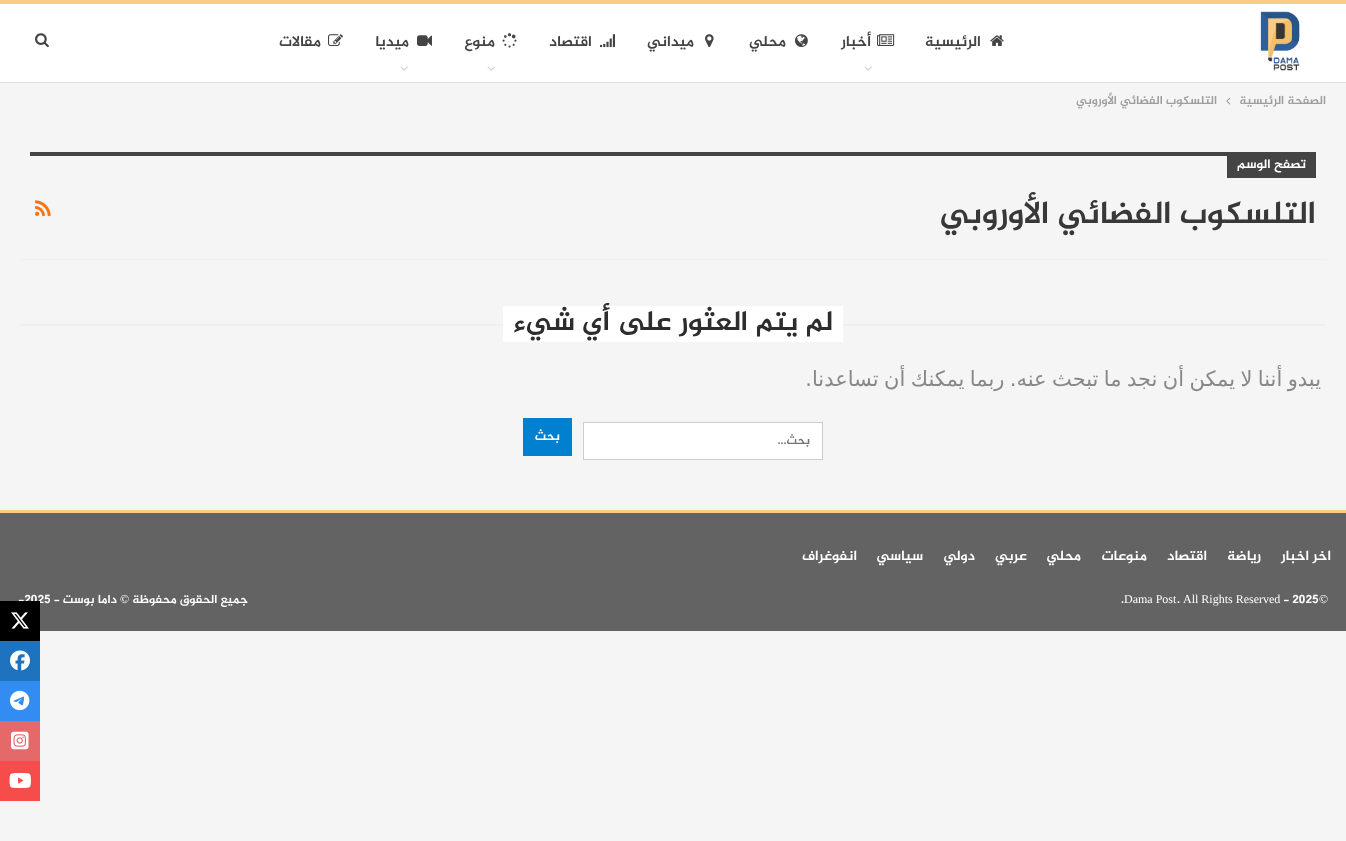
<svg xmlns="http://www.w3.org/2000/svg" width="1346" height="841">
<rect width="100%" height="100%" fill="#f5f5f5"/>
<rect width="1346" height="4" fill="#f9cd86"/>
<rect y="4" width="1346" height="78" fill="#fff"/>
<rect y="82" width="1346" height="1" fill="#dedede"/>
<image x="1260" y="11" width="40" height="60" href="media/1.png"/>
<image x="990" y="35" width="14" height="11" href="media/2.png"/>
<text x="981" y="46" style="font-family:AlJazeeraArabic;font-size:15px;font-weight:bold;direction:rtl;fill:#444">الرئيسية</text>
<image x="877" y="34" width="18" height="12" href="media/3.png"/>
<text x="871" y="46" style="font-family:AlJazeeraArabic;font-size:15px;font-weight:bold;direction:rtl;fill:#444">أخبار</text>
<image x="864" y="66" width="8" height="5" href="media/4.png"/>
<image x="795" y="34" width="13" height="14" href="media/5.png"/>
<text x="786" y="46" style="font-family:AlJazeeraArabic;font-size:15px;font-weight:bold;direction:rtl;fill:#444">محلي</text>
<image x="705" y="34" width="9" height="13" href="media/6.png"/>
<text x="694" y="46" style="font-family:AlJazeeraArabic;font-size:15px;font-weight:bold;direction:rtl;fill:#444">ميداني</text>
<image x="600" y="34" width="15" height="14" href="media/7.png"/>
<text x="592" y="46" style="font-family:AlJazeeraArabic;font-size:15px;font-weight:bold;direction:rtl;fill:#444">اقتصاد</text>
<image x="502" y="33" width="15" height="15" href="media/8.png"/>
<text x="495" y="46" style="font-family:AlJazeeraArabic;font-size:15px;font-weight:bold;direction:rtl;fill:#444">منوع</text>
<image x="487" y="66" width="8" height="5" href="media/4.png"/>
<image x="417" y="35" width="15" height="11" href="media/9.png"/>
<text x="409" y="46" style="font-family:AlJazeeraArabic;font-size:15px;font-weight:bold;direction:rtl;fill:#444">ميديا</text>
<image x="400" y="66" width="8" height="5" href="media/4.png"/>
<image x="328" y="34" width="15" height="12" href="media/10.png"/>
<text x="321" y="46" style="font-family:AlJazeeraArabic;font-size:15px;font-weight:bold;direction:rtl;fill:#444">مقالات</text>
<image x="35" y="33" width="14" height="15" href="media/11.png"/>
<text x="1326" y="104" style="font-family:AlJazeeraArabic;font-size:12px;font-weight:bold;direction:rtl;fill:#9e9e9e">الصفحة الرئيسية</text>
<image x="1226" y="97" width="5" height="8" href="media/12.png"/>
<text x="1217" y="104" style="font-family:AlJazeeraArabic;font-size:12px;font-weight:bold;direction:rtl;fill:#9e9e9e">التلسكوب الفضائي الأوروبي</text>
<rect x="20" y="259" width="1306" height="1" fill="#f0f0f0"/>
<rect x="30" y="152" width="1197" height="4" fill="#444"/>
<rect x="1227" y="152" width="89" height="26" fill="#444"/>
<text x="1306" y="168" style="font-family:AlJazeeraArabic;font-size:13px;font-weight:bold;direction:rtl;fill:#fff">تصفح الوسم</text>
<text x="1316" y="223" style="font-family:AlJazeeraArabic;font-size:32px;font-weight:bold;direction:rtl;fill:#383838">التلسكوب الفضائي الأوروبي</text>
<image x="35" y="200" width="16" height="16" href="media/13.png"/>
<rect x="20" y="324" width="1306" height="2" fill="#f0f0f0"/>
<rect x="503" y="306" width="340" height="36" fill="#fff"/>
<text x="833" y="330" style="font-family:AlJazeeraArabic;font-size:28px;font-weight:bold;direction:rtl;fill:#2d2d2d">لم يتم العثور على أي شيء</text>
<text x="1321" y="386" word-spacing="-1.25" style="font-family:DejaVu Sans;font-size:21px;direction:rtl;fill:#888">يبدو أننا لا يمكن أن نجد ما تبحث عنه. ربما يمكنك أن تساعدنا.</text>
<rect x="583.5" y="422.5" width="239" height="37" fill="#fff" stroke="#ccc"/>
<text x="810" y="444" style="font-family:AlJazeeraArabic;font-size:12px;font-weight:bold;direction:rtl;fill:#757575">بحث...</text>
<rect x="523" y="418" width="49" height="38" fill="#0080ce"/>
<text x="560" y="440" style="font-family:AlJazeeraArabic;font-size:13px;font-weight:bold;direction:rtl;fill:#fff">بحث</text>
<rect y="513" width="1346" height="118" fill="#636363"/>
<rect y="510" width="1346" height="3" fill="#f9cd86"/>
<text x="1331" y="560" style="font-family:AlJazeeraArabic;font-size:14px;font-weight:bold;direction:rtl;fill:#fff">اخر اخبار</text>
<text x="1261" y="560" style="font-family:AlJazeeraArabic;font-size:14px;font-weight:bold;direction:rtl;fill:#fff">رياضة</text>
<text x="1207" y="560" style="font-family:AlJazeeraArabic;font-size:14px;font-weight:bold;direction:rtl;fill:#fff">اقتصاد</text>
<text x="1147" y="560" style="font-family:AlJazeeraArabic;font-size:14px;font-weight:bold;direction:rtl;fill:#fff">منوعات</text>
<text x="1081" y="560" style="font-family:AlJazeeraArabic;font-size:14px;font-weight:bold;direction:rtl;fill:#fff">محلي</text>
<text x="1027" y="560" style="font-family:AlJazeeraArabic;font-size:14px;font-weight:bold;direction:rtl;fill:#fff">عربي</text>
<text x="975" y="560" style="font-family:AlJazeeraArabic;font-size:14px;font-weight:bold;direction:rtl;fill:#fff">دولي</text>
<text x="923" y="560" style="font-family:AlJazeeraArabic;font-size:14px;font-weight:bold;direction:rtl;fill:#fff">سياسي</text>
<text x="857" y="560" style="font-family:AlJazeeraArabic;font-size:14px;font-weight:bold;direction:rtl;fill:#fff">انفوغراف</text>
<text x="1319" y="603" style="font-family:Liberation Serif;font-size:12px;fill:#fff">©</text>
<text x="1283" y="603" style="font-family:AlJazeeraArabic;font-size:12px;font-weight:bold;fill:#fff">- 2025</text>
<text x="1183" y="603" style="font-family:Liberation Serif;font-size:12px;fill:#fff">All Rights Reserved</text>
<text x="1177" y="603" style="font-family:AlJazeeraArabic;font-size:12px;font-weight:bold;fill:#fff">.</text>
<text x="1124" y="603" style="font-family:Liberation Serif;font-size:12px;fill:#fff">Dama Post</text>
<text x="1121" y="603" style="font-family:AlJazeeraArabic;font-size:12px;font-weight:bold;fill:#fff">.</text>
<text x="248" y="603" style="font-family:AlJazeeraArabic;font-size:12px;font-weight:bold;direction:rtl;fill:#fff">جميع الحقوق محفوظة</text>
<text x="129" y="603" style="font-family:Liberation Serif;font-size:12px;direction:rtl;fill:#fff">©</text>
<text x="117" y="603" style="font-family:AlJazeeraArabic;font-size:12px;font-weight:bold;direction:rtl;fill:#fff">داما بوست -</text>
<text x="18" y="603" style="font-family:AlJazeeraArabic;font-size:12px;font-weight:bold;fill:#fff">-2025</text>
<rect y="601" width="40" height="40" fill="#000"/>
<image x="11" y="612" width="18" height="17" href="media/14.png"/>
<rect y="641" width="40" height="40" fill="#1e73be"/>
<image x="10" y="650" width="20" height="21" href="media/15.png"/>
<rect y="681" width="40" height="40" fill="#328cf2"/>
<image x="10" y="690" width="20" height="21" href="media/16.png"/>
<rect y="721" width="40" height="40" fill="#e56969"/>
<image x="11" y="731" width="18" height="19" href="media/17.png"/>
<rect y="761" width="40" height="40" fill="#f74c4c"/>
<image x="9" y="773" width="22" height="15" href="media/18.png"/>
</svg>
